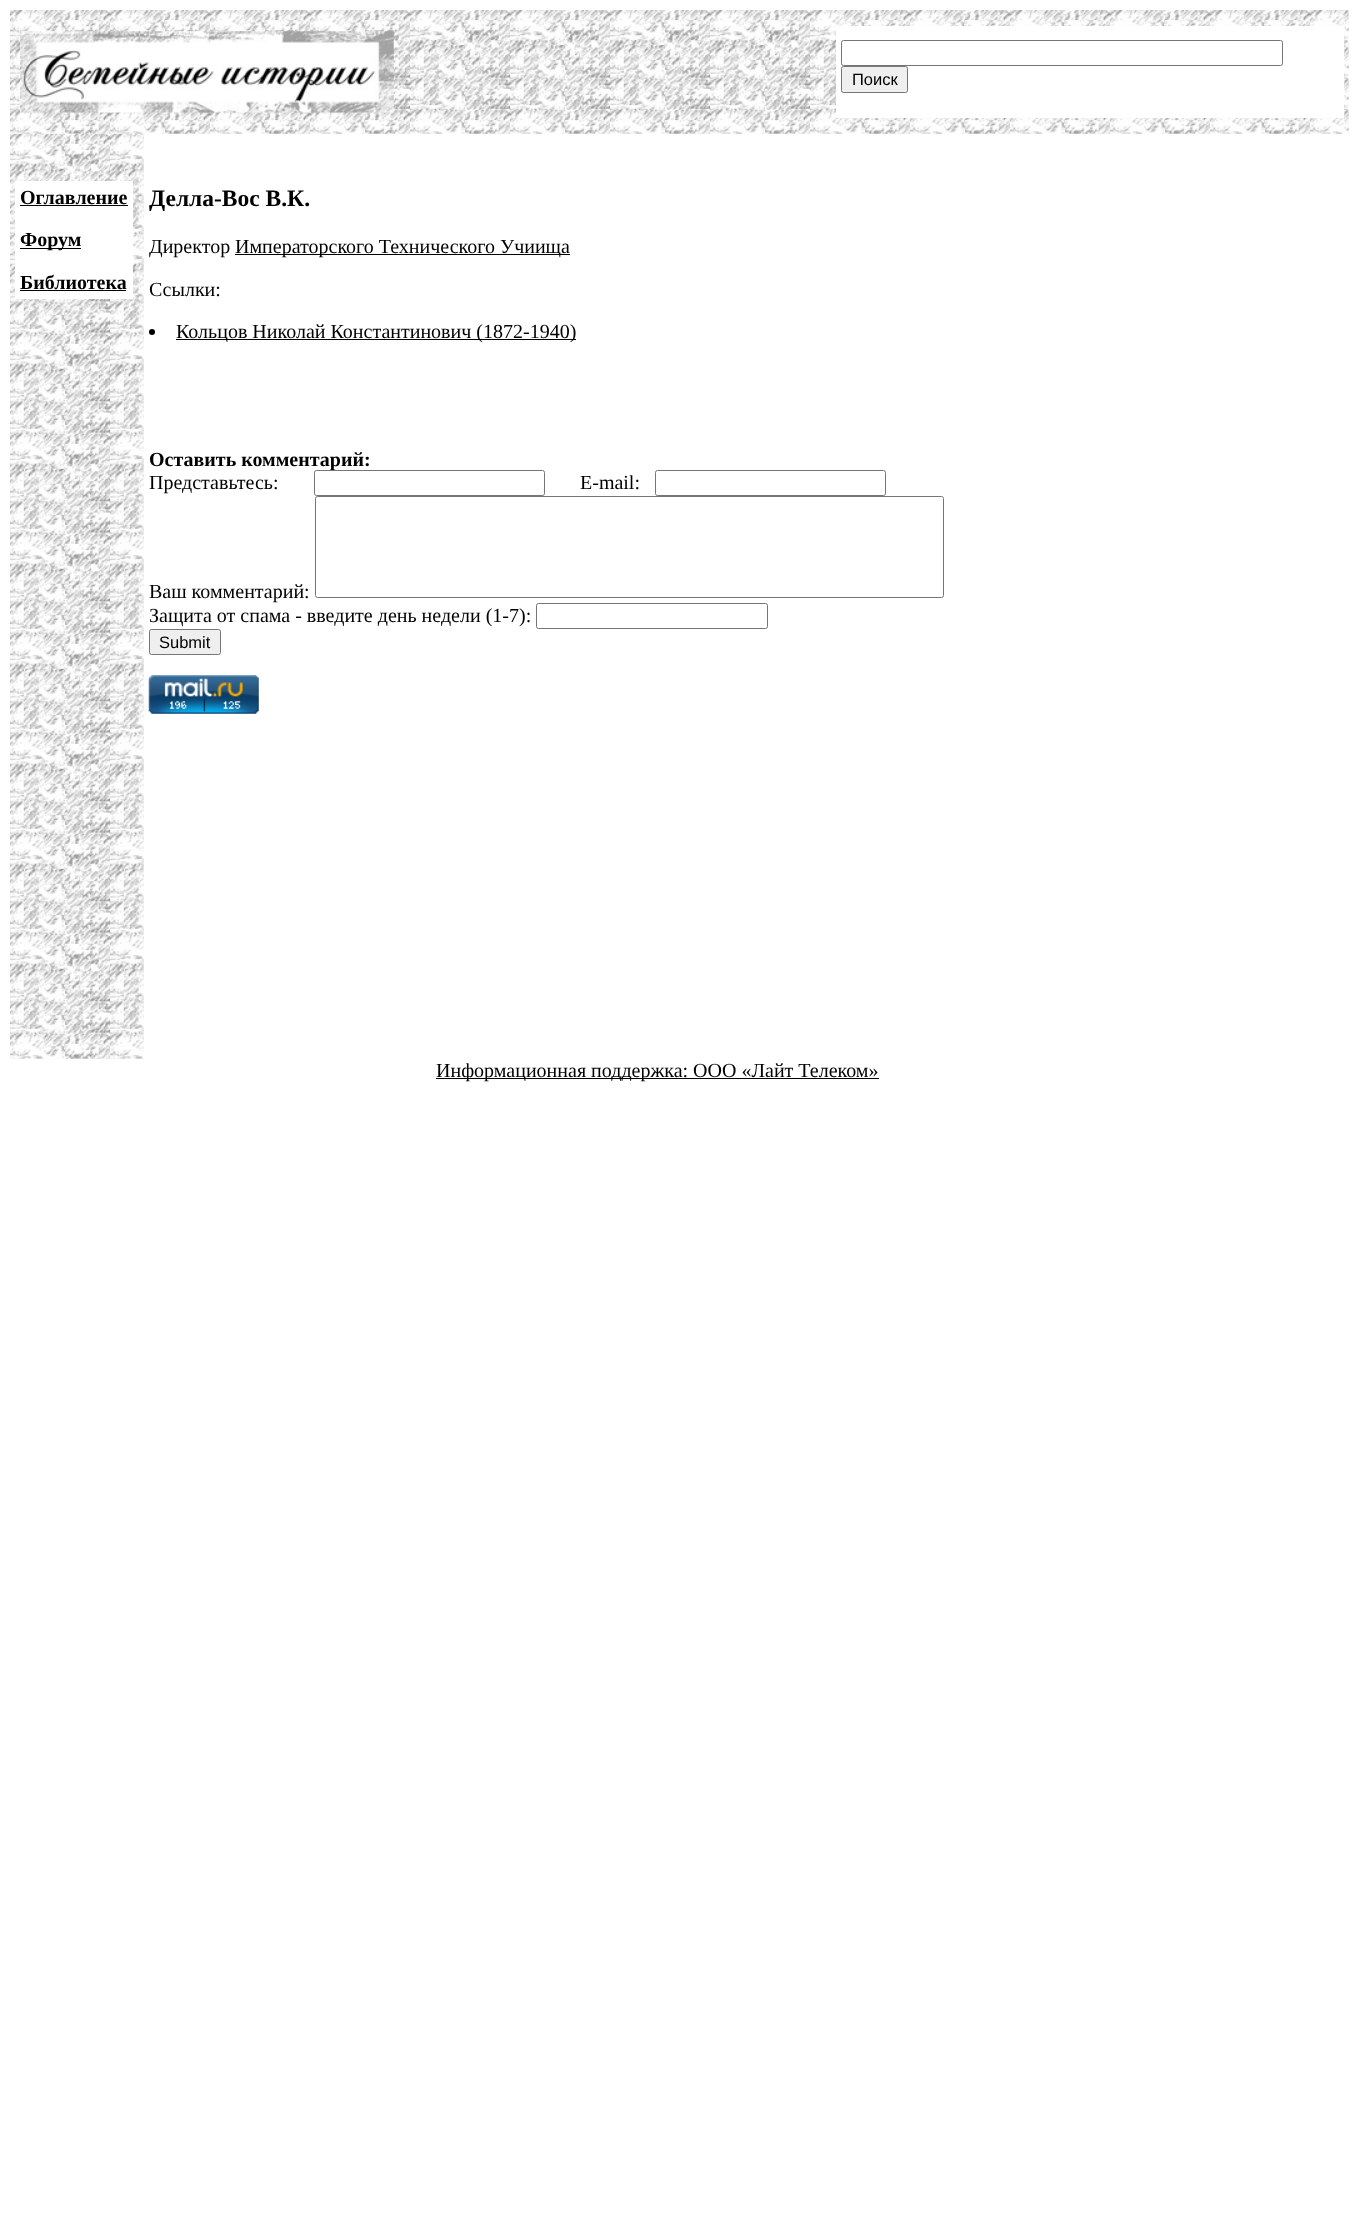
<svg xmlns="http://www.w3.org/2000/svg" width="1358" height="2238">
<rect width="100%" height="100%" fill="#fff"/>
<image x="10" y="10" width="1339" height="124" href="media/1.png"/>
<image x="20" y="31" width="374" height="82" href="media/2.png"/>
<rect x="836" y="26" width="508" height="92" fill="#fff"/>
<rect x="841.5" y="40.5" width="441" height="25" rx="2" fill="none" stroke="#767676"/>
<rect x="841.5" y="66.5" width="66" height="26" rx="2" fill="#efefef" stroke="#767676"/>
<text x="852" y="85" style="font-family:Liberation Sans;font-size:16.5px;fill:#000">Поиск</text>
<image x="10" y="133" width="134" height="926" href="media/3.png"/>
<rect x="15" y="181" width="118" height="118" fill="#fff"/>
<text x="20" y="204" style="font-family:Liberation Serif;font-size:20px;font-weight:bold;fill:#000">Оглавление</text>
<rect x="20" y="205" width="108" height="1" fill="#000"/>
<rect x="20" y="248" width="61" height="1" fill="#000"/>
<text x="20" y="246" style="font-family:Liberation Serif;font-size:20px;font-weight:bold;fill:#000">Форум</text>
<text x="20" y="289" style="font-family:Liberation Serif;font-size:20px;font-weight:bold;fill:#000">Библиотека</text>
<rect x="20" y="290" width="106" height="1" fill="#000"/>
<text x="149" y="206" style="font-family:Liberation Serif;font-size:23.5px;font-weight:bold;fill:#000">Делла-Вос В.К.</text>
<text x="149" y="253" style="font-family:Liberation Serif;font-size:20px;fill:#000">Директор</text>
<rect x="235" y="254" width="335" height="1" fill="#000"/>
<text x="235" y="253" style="font-family:Liberation Serif;font-size:20px;fill:#000">Императорского Технического Учиища</text>
<text x="149" y="296" style="font-family:Liberation Serif;font-size:20px;fill:#000">Ссылки:</text>
<circle cx="152" cy="332" r="3" fill="#000"/>
<rect x="176" y="339" width="400" height="1" fill="#000"/>
<text x="176" y="338" style="font-family:Liberation Serif;font-size:20px;fill:#000">Кольцов Николай Константинович (1872-1940)</text>
<text x="149" y="466" style="font-family:Liberation Serif;font-size:20px;font-weight:bold;fill:#000">Оставить комментарий:</text>
<text x="149" y="489" style="font-family:Liberation Serif;font-size:20px;fill:#000">Представьтесь:</text>
<rect x="314.5" y="470.5" width="230" height="25" rx="2" fill="#fff" stroke="#767676"/>
<text x="580" y="489" style="font-family:Liberation Serif;font-size:20px;fill:#000">E-mail:</text>
<rect x="655.5" y="470.5" width="230" height="25" rx="2" fill="none" stroke="#767676"/>
<text x="149" y="598" style="font-family:Liberation Serif;font-size:20px;fill:#000">Ваш комментарий:</text>
<rect x="315.5" y="496.5" width="628" height="101" rx="2" fill="none" stroke="#767676"/>
<text x="149" y="622" style="font-family:Liberation Serif;font-size:20px;fill:#000">Защита от спама - введите день недели (1-7):</text>
<rect x="536.5" y="603.5" width="231" height="25" rx="2" fill="none" stroke="#767676"/>
<rect x="149.5" y="629.5" width="71" height="25" rx="2" fill="#efefef" stroke="#767676"/>
<text x="159" y="648" style="font-family:Liberation Sans;font-size:16.5px;fill:#000">Submit</text>
<image x="148" y="675" width="111" height="39" href="media/4.png"/>
<rect x="436" y="1078" width="443" height="1" fill="#000"/>
<text x="436" y="1077" style="font-family:Liberation Serif;font-size:20px;fill:#000">Информационная поддержка: ООО «Лайт Телеком»</text>
</svg>
